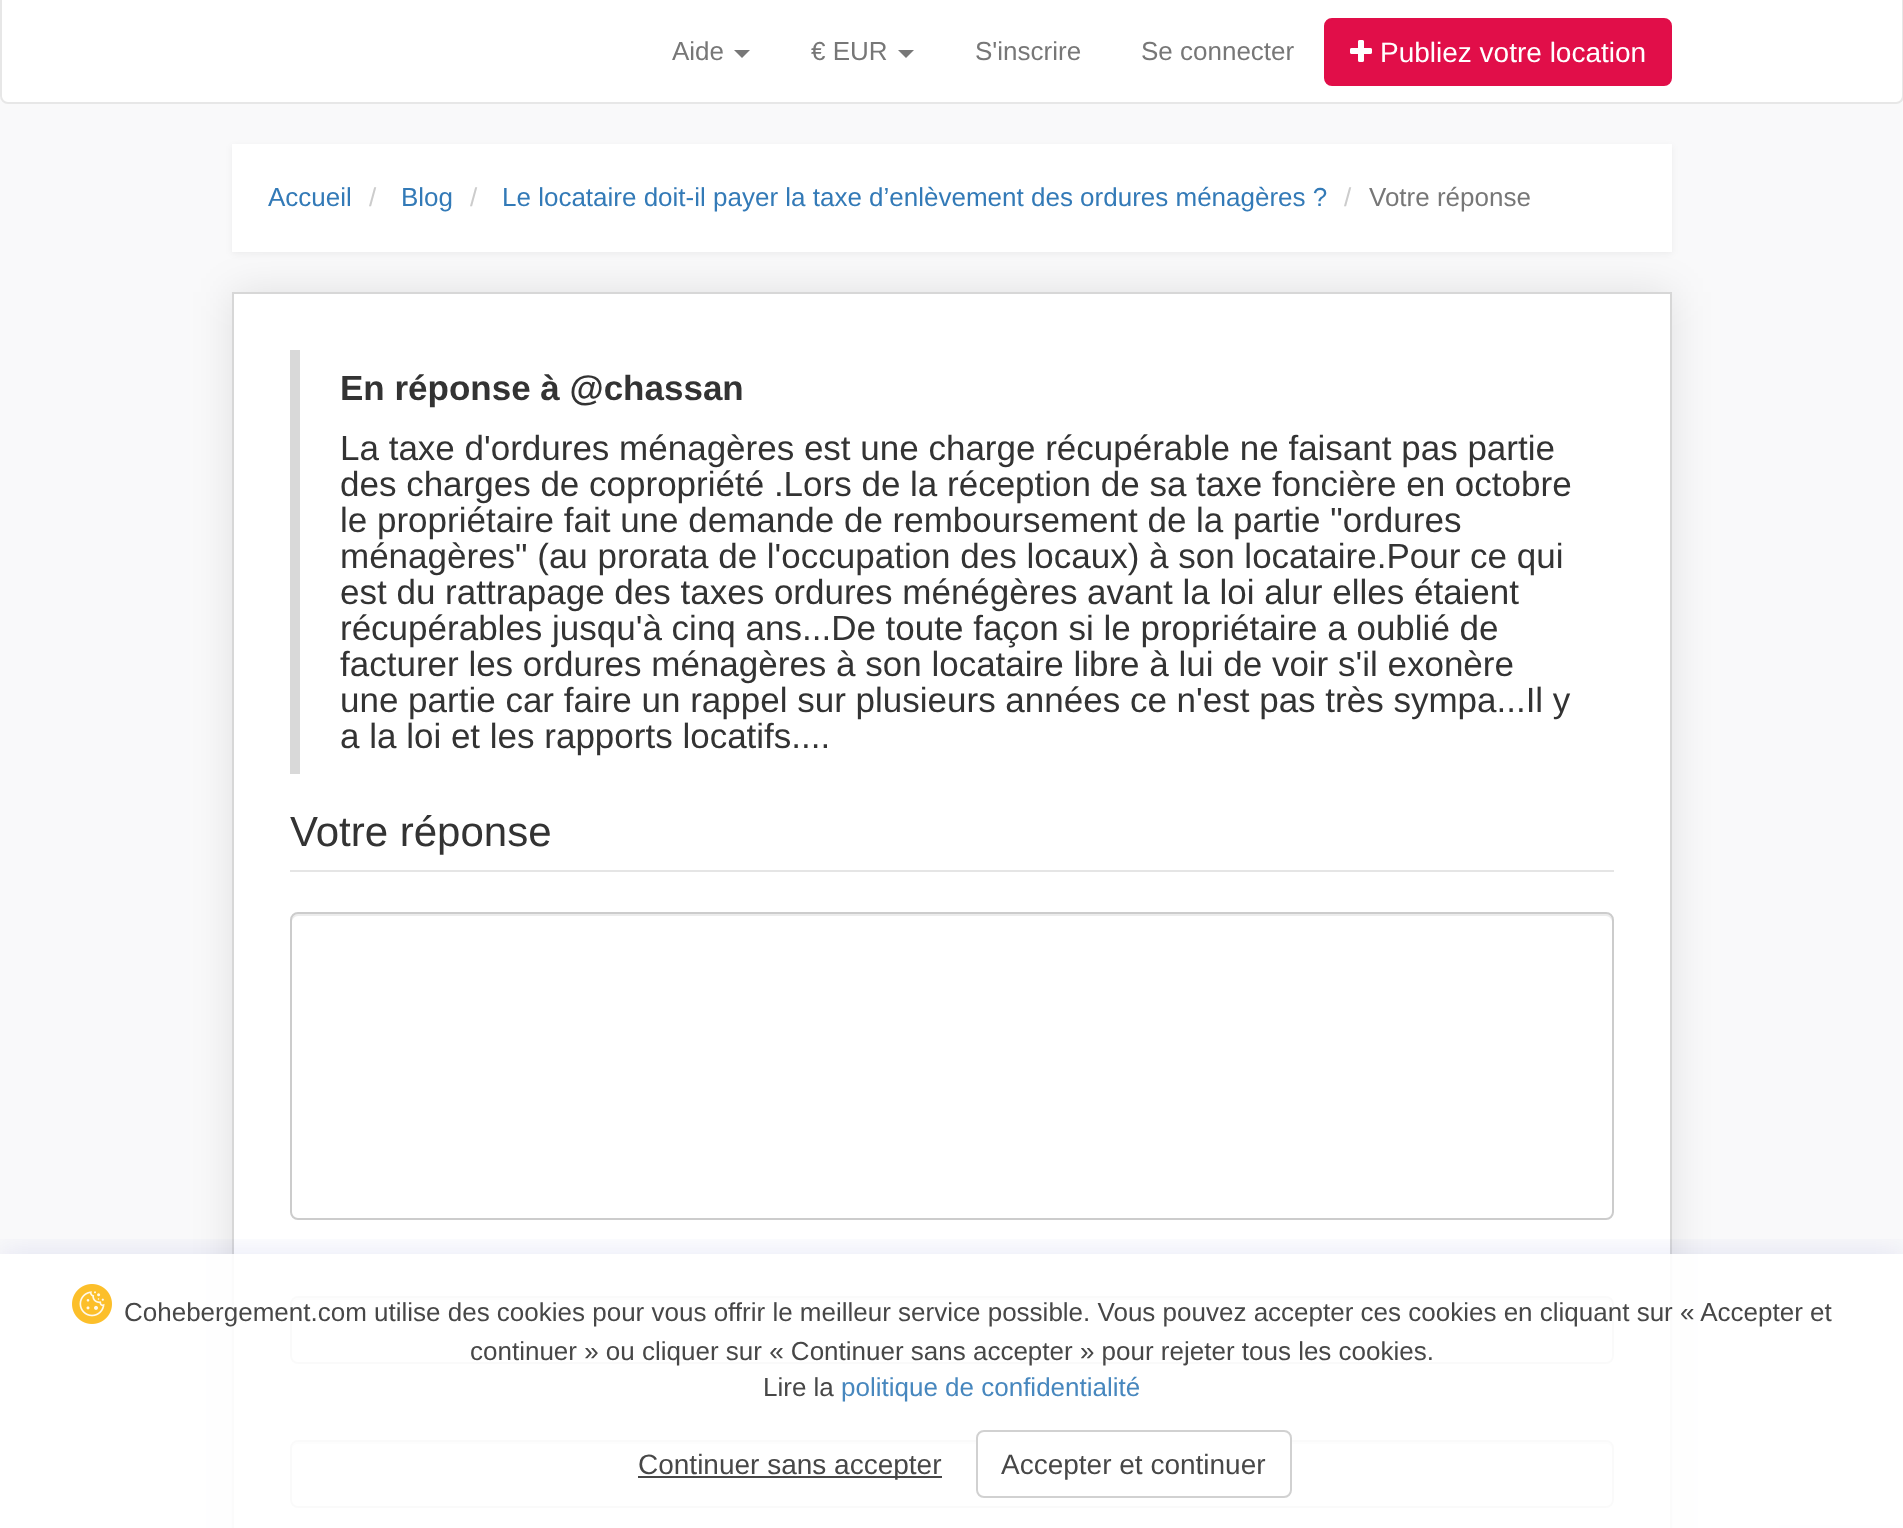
<svg xmlns="http://www.w3.org/2000/svg" width="1903" height="1528">
<defs>
<clipPath id="clip1"><rect x="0" y="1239" width="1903" height="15"/></clipPath>
</defs>
<rect width="100%" height="100%" fill="#f9f9fa"/>
<rect x="1" y="-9" width="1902" height="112" rx="7" fill="#fff" stroke="#e7e7e7" stroke-width="2"/>
<text x="672" y="60" style="font-family:Liberation Sans;font-size:26px;fill:#777">Aide</text>
<path d="M734 50h16l-8 8z" fill="#777"/>
<text x="811" y="60" style="font-family:Liberation Sans;font-size:26px;fill:#777">€ EUR</text>
<path d="M898 50h16l-8 8z" fill="#777"/>
<text x="975" y="60" style="font-family:Liberation Sans;font-size:26px;fill:#777">S'inscrire</text>
<text x="1141" y="60" style="font-family:Liberation Sans;font-size:26px;fill:#777">Se connecter</text>
<rect x="1325" y="19" width="346" height="66" rx="7" fill="#e10e49" stroke="#e10e49" stroke-width="2"/>
<image x="1350" y="40" width="22" height="22" href="media/1.png"/>
<text x="1380" y="62" style="font-family:Liberation Sans;font-size:28px;fill:#fff">Publiez votre location</text>
<rect x="232" y="146" width="1440" height="108" fill="#0000000d" filter="blur(3px)"/>
<rect x="232" y="144" width="1440" height="108" fill="#fff"/>
<text x="268" y="206" style="font-family:Liberation Sans;font-size:26px;fill:#337ab7">Accueil</text>
<text x="369" y="206" style="font-family:Liberation Sans;font-size:26px;fill:#ccc">/</text>
<text x="401" y="206" style="font-family:Liberation Sans;font-size:26px;fill:#337ab7">Blog</text>
<text x="470" y="206" style="font-family:Liberation Sans;font-size:26px;fill:#ccc">/</text>
<text x="502" y="206" style="font-family:Liberation Sans;font-size:26px;fill:#337ab7">Le locataire doit-il payer la taxe d’enlèvement des ordures ménagères ?</text>
<text x="1344" y="206" style="font-family:Liberation Sans;font-size:26px;fill:#ccc">/</text>
<text x="1369" y="206" style="font-family:Liberation Sans;font-size:26px;fill:#777">Votre réponse</text>
<rect x="232" y="292" width="1440" height="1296" fill="#0000001a" filter="blur(20px)"/>
<rect x="233" y="293" width="1438" height="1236" fill="#fff" stroke="#d7d7d7" stroke-width="2"/>
<rect x="290" y="350" width="10" height="424" fill="#d9d9d9"/>
<text x="340" y="400" style="font-family:Liberation Sans;font-size:35px;font-weight:bold;fill:#333">En réponse à @chassan</text>
<text x="340" y="460" style="font-family:Liberation Sans;font-size:35px;fill:#333">La taxe d'ordures ménagères est une charge récupérable ne faisant pas partie</text>
<text x="340" y="496" style="font-family:Liberation Sans;font-size:35px;fill:#333">des charges de copropriété .Lors de la réception de sa taxe foncière en octobre</text>
<text x="340" y="532" style="font-family:Liberation Sans;font-size:35px;fill:#333">le propriétaire fait une demande de remboursement de la partie "ordures</text>
<text x="340" y="568" style="font-family:Liberation Sans;font-size:35px;fill:#333">ménagères" (au prorata de l'occupation des locaux) à son locataire.Pour ce qui</text>
<text x="340" y="604" style="font-family:Liberation Sans;font-size:35px;fill:#333">est du rattrapage des taxes ordures ménégères avant la loi alur elles étaient</text>
<text x="340" y="640" style="font-family:Liberation Sans;font-size:35px;fill:#333">récupérables jusqu'à cinq ans...De toute façon si le propriétaire a oublié de</text>
<text x="340" y="676" style="font-family:Liberation Sans;font-size:35px;fill:#333">facturer les ordures ménagères à son locataire libre à lui de voir s'il exonère</text>
<text x="340" y="712" style="font-family:Liberation Sans;font-size:35px;fill:#333">une partie car faire un rappel sur plusieurs années ce n'est pas très sympa...Il y</text>
<text x="340" y="748" style="font-family:Liberation Sans;font-size:35px;fill:#333">a la loi et les rapports locatifs....</text>
<rect x="290" y="870" width="1324" height="2" fill="#e5e5e5"/>
<text x="290" y="846" style="font-family:Liberation Sans;font-size:42px;fill:#333">Votre réponse</text>
<path d="M298 916h1308c3 0 6 3 6 6v-2c0-3-3-6-6-6h-1308c-3 0-6 3-6 6v2c0-3 3-6 6-6z" fill="#ececec"/>
<rect x="291" y="913" width="1322" height="306" rx="7" fill="none" stroke="#ccc" stroke-width="2"/>
<path d="M298 1300h1308c3 0 6 3 6 6v-2c0-3-3-6-6-6h-1308c-3 0-6 3-6 6v2c0-3 3-6 6-6z" fill="#ececec"/>
<rect x="291" y="1297" width="1322" height="66" rx="7" fill="none" stroke="#ccc" stroke-width="2"/>
<path d="M298 1444h1308c3 0 6 3 6 6v-2c0-3-3-6-6-6h-1308c-3 0-6 3-6 6v2c0-3 3-6 6-6z" fill="#ececec"/>
<rect x="291" y="1441" width="1322" height="66" rx="7" fill="none" stroke="#ccc" stroke-width="2"/>
<g clip-path="url(#clip1)">
<rect y="1250" width="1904" height="274" fill="#1422b417" filter="blur(15px)"/>
</g>
<rect y="1254" width="1903" height="274" fill="#ffffffe6"/>
<image x="72" y="1284" width="40" height="40" href="media/2.png"/>
<text x="124" y="1321" style="font-family:Liberation Sans;font-size:26px;fill:#474747">Cohebergement.com utilise des cookies pour vous offrir le meilleur service possible. Vous pouvez accepter ces cookies en cliquant sur « Accepter et</text>
<text x="470" y="1360" style="font-family:Liberation Sans;font-size:26px;fill:#474747">continuer » ou cliquer sur « Continuer sans accepter » pour rejeter tous les cookies.</text>
<text x="763" y="1396" style="font-family:Liberation Sans;font-size:26px;fill:#474747">Lire la</text>
<text x="841" y="1396" style="font-family:Liberation Sans;font-size:26px;fill:#4787be">politique de confidentialité</text>
<rect x="638" y="1476" width="304" height="2" fill="#474747"/>
<text x="638" y="1474" style="font-family:Liberation Sans;font-size:28px;fill:#474747">Continuer sans accepter</text>
<rect x="977" y="1431" width="314" height="66" rx="7" fill="#ffffffe6" stroke="#d1d1d1" stroke-width="2"/>
<text x="1001" y="1474" style="font-family:Liberation Sans;font-size:28px;fill:#474747">Accepter et continuer</text>
</svg>
